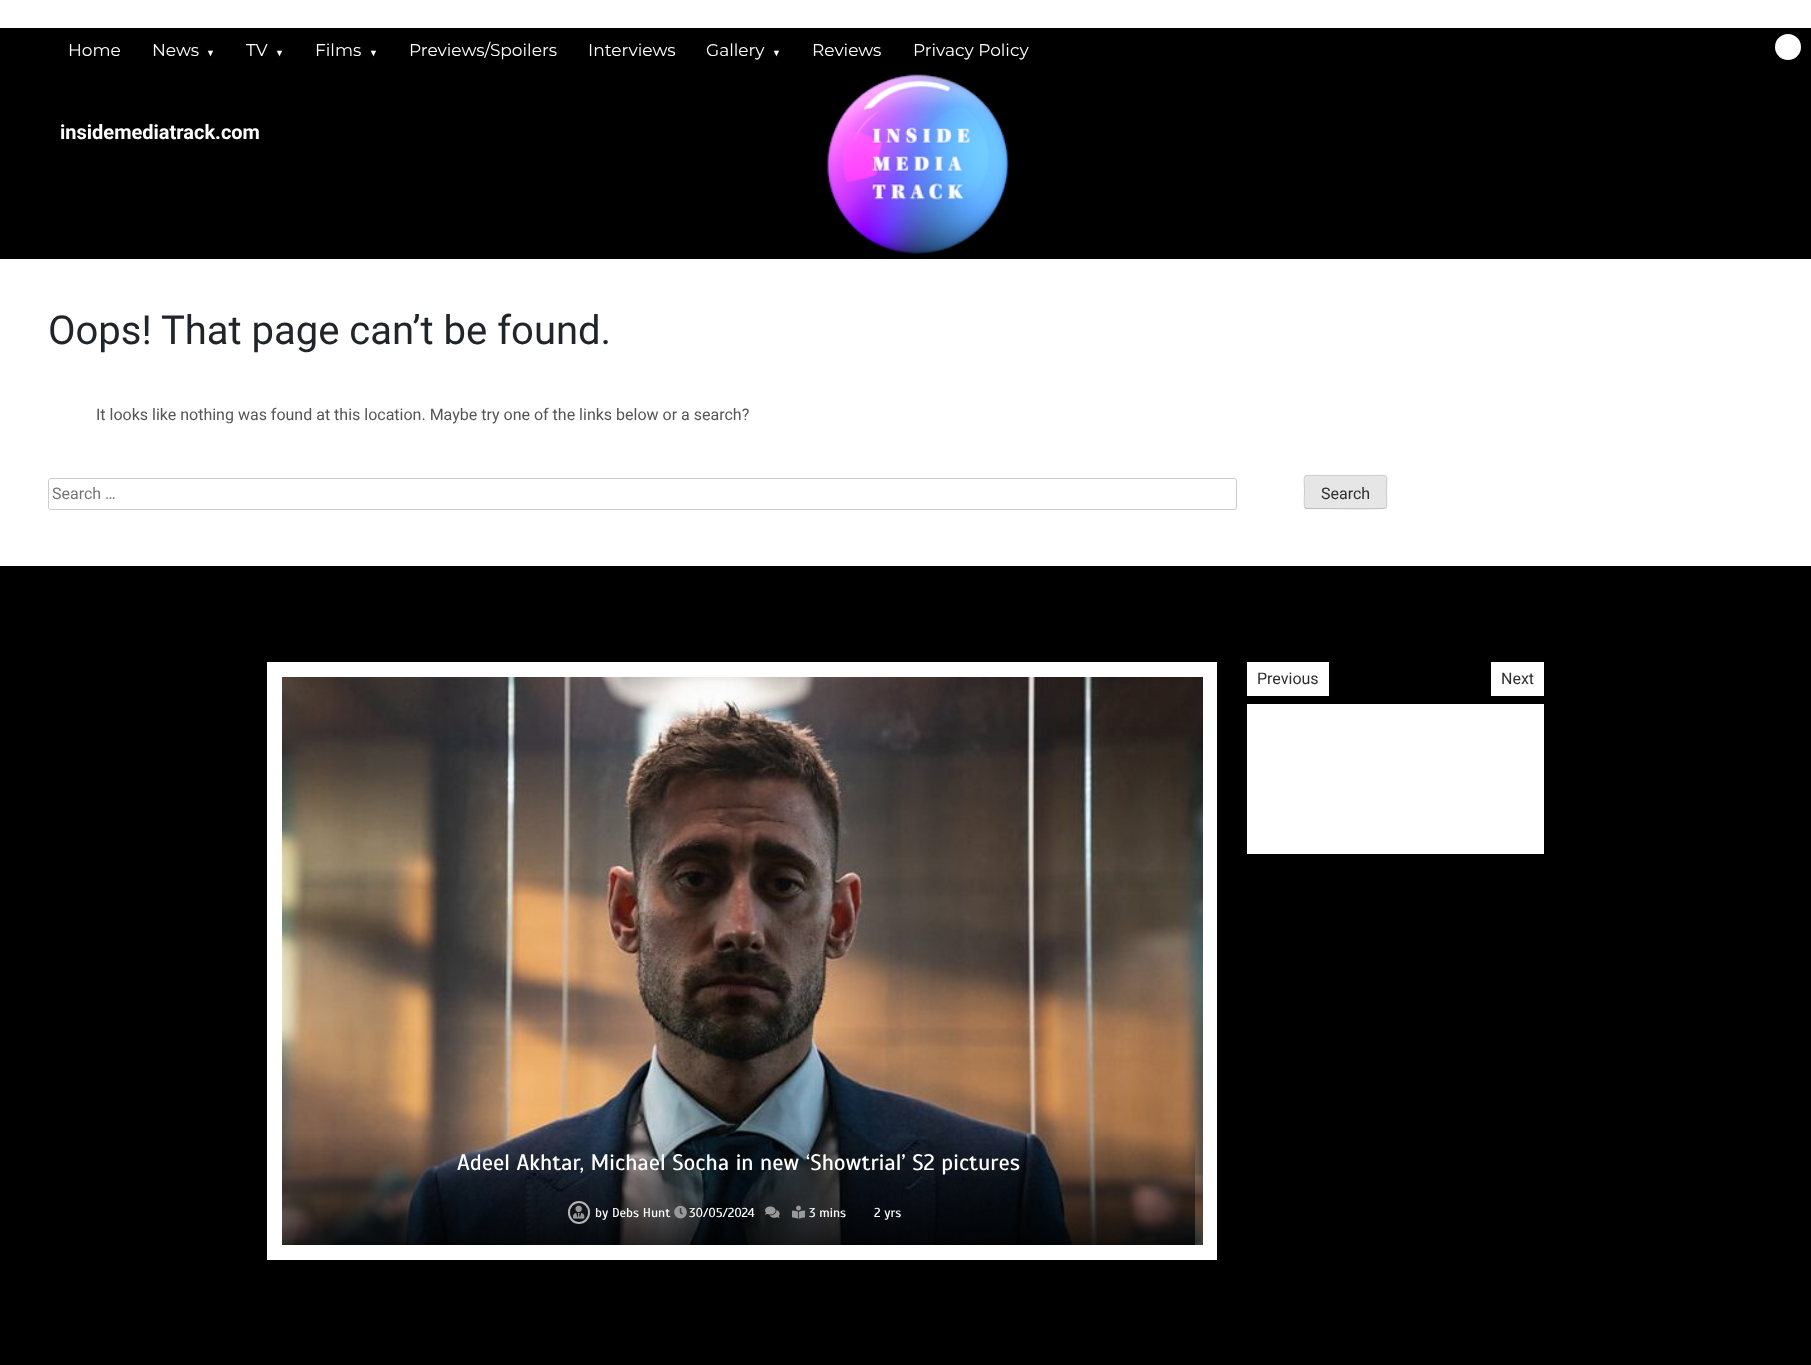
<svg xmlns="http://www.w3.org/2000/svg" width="1811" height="1365">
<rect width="100%" height="100%" fill="#fff"/>
<rect y="28" width="1811" height="231" fill="#000"/>
<text x="68" y="56" style="font-family:Montserrat;font-size:17px;fill:#fff">Home</text>
<text x="152" y="56" style="font-family:Montserrat;font-size:17px;fill:#fff">News</text>
<text x="206" y="56" style="font-family:Liberation Serif;font-size:9px;fill:#fff">▼</text>
<text x="246" y="56" style="font-family:Montserrat;font-size:17px;fill:#fff">TV</text>
<text x="275" y="56" style="font-family:Liberation Serif;font-size:9px;fill:#fff">▼</text>
<text x="315" y="56" style="font-family:Montserrat;font-size:17px;fill:#fff">Films</text>
<text x="369" y="56" style="font-family:Liberation Serif;font-size:9px;fill:#fff">▼</text>
<text x="409" y="56" style="font-family:Montserrat;font-size:17px;fill:#fff">Previews/Spoilers</text>
<text x="588" y="56" style="font-family:Montserrat;font-size:17px;fill:#fff">Interviews</text>
<text x="706" y="56" style="font-family:Montserrat;font-size:17px;fill:#fff">Gallery</text>
<text x="772" y="56" style="font-family:Liberation Serif;font-size:9px;fill:#fff">▼</text>
<text x="812" y="56" style="font-family:Montserrat;font-size:17px;fill:#fff">Reviews</text>
<text x="913" y="56" style="font-family:Montserrat;font-size:17px;fill:#fff">Privacy Policy</text>
<circle cx="1788" cy="47" r="13" fill="#fff"/>
<image x="827" y="74" width="182" height="180" href="media/1.png"/>
<text x="60" y="139" style="font-family:Roboto;font-size:20px;font-weight:bold;fill:#fff">insidemediatrack.com</text>
<text x="48" y="344" style="font-family:Roboto;font-size:40px;fill:#212529">Oops! That page can’t be found.</text>
<text x="96" y="420" style="font-family:Roboto;font-size:16px;fill:#555">It looks like nothing was found at this location. Maybe try one of the links below or a search?</text>
<rect x="48.5" y="478.5" width="1188" height="31" rx="2.5" fill="none" stroke="#ccc"/>
<text x="52" y="499" style="font-family:Roboto;font-size:16px;fill:#757575">Search …</text>
<rect x="1304" y="475" width="83" height="34" rx="3" fill="#e6e6e6"/>
<path d="M1386 508h-.5c-2 1.5-58.5 .5-65.5 .5h-13l-2-.5" fill="none" stroke="#bbb"/>
<path d="M1305 508c-1.5-2-.5-13.5-.5-16c0-19.5-4-16.5 15.5-16.5h51c19.5 0 15.5-3 15.5 16.5c0 2.5 1 14-.5 16" fill="none" stroke="#ccc"/>
<text x="1321" y="499" style="font-family:Roboto;font-size:16px;fill:#2e2e2e">Search</text>
<rect y="566" width="1811" height="799" fill="#000"/>
<rect x="1247" y="704" width="297" height="150" fill="#fff"/>
<rect x="1247" y="662" width="82" height="34" fill="#fff"/>
<text x="1257" y="684" style="font-family:Roboto;font-size:16px;fill:#2e2e2e">Previous</text>
<rect x="1491" y="662" width="53" height="34" fill="#fff"/>
<text x="1501" y="684" style="font-family:Roboto;font-size:16px;fill:#2e2e2e">Next</text>
<rect x="267" y="662" width="950" height="598" fill="#fff"/>
<image x="282" y="677" width="921" height="568" href="media/2.png"/>
<text x="457" y="1170" style="font-family:Scada;font-size:22.4px;fill:#fff">Adeel Akhtar, Michael Socha in new ‘Showtrial’ S2 pictures</text>
<rect x="569" y="1202" width="20" height="21" rx="10" fill="none" stroke="#b7b4b4" stroke-width="2"/>
<image x="573" y="1205" width="12" height="14" href="media/3.png"/>
<text x="595" y="1217" style="font-family:Scada;font-size:13px;fill:#fff">by Debs Hunt</text>
<image x="674" y="1205" width="13" height="14" href="media/4.png"/>
<text x="689" y="1217" style="font-family:Scada;font-size:13px;fill:#fff">30/05/2024</text>
<image x="765" y="1206" width="15" height="12" href="media/5.png"/>
<image x="792" y="1205" width="13" height="14" href="media/6.png"/>
<text x="809" y="1217" style="font-family:Scada;font-size:13px;fill:#fff">3 mins</text>
<text x="874" y="1217" style="font-family:Scada;font-size:13px;fill:#fff">2 yrs</text>
</svg>
